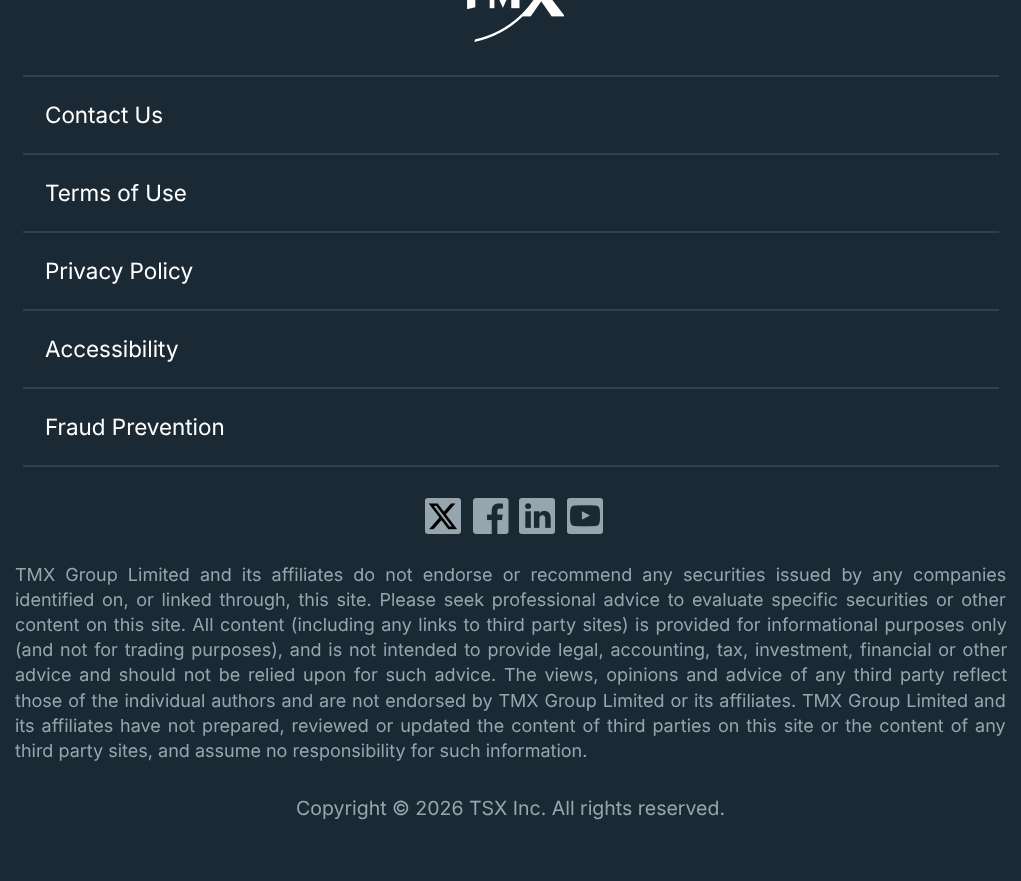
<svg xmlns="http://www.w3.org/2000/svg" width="1021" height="881">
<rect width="100%" height="100%" fill="#1b2935"/>
<image x="467" y="0" width="97" height="42" href="media/1.png"/>
<rect x="23" y="465" width="976" height="2" fill="#2c4357"/>
<rect x="23" y="75" width="976" height="2" fill="#2c4357"/>
<text x="45" y="123" style="font-family:Inter;font-size:22.5px;fill:#fff">Contact Us</text>
<rect x="23" y="153" width="976" height="2" fill="#2c4357"/>
<text x="45" y="201" style="font-family:Inter;font-size:22.5px;fill:#fff">Terms of Use</text>
<rect x="23" y="231" width="976" height="2" fill="#2c4357"/>
<text x="45" y="279" style="font-family:Inter;font-size:22.5px;fill:#fff">Privacy Policy</text>
<rect x="23" y="309" width="976" height="2" fill="#2c4357"/>
<text x="45" y="357" style="font-family:Inter;font-size:22.5px;fill:#fff">Accessibility</text>
<rect x="23" y="387" width="976" height="2" fill="#2c4357"/>
<text x="45" y="435" style="font-family:Inter;font-size:22.5px;fill:#fff">Fraud Prevention</text>
<rect x="425" y="498" width="36" height="36" rx="3" fill="#97a5ae"/>
<image x="428" y="503" width="29" height="27" href="media/2.png"/>
<image x="473" y="498" width="36" height="36" href="media/3.png"/>
<rect x="519" y="498" width="36" height="36" rx="3" fill="#97a5ae"/>
<image x="525" y="503" width="26" height="25" href="media/4.png"/>
<rect x="567" y="498" width="36" height="36" rx="3" fill="#97a5ae"/>
<image x="570" y="505" width="30" height="22" href="media/5.png"/>
<text x="15" y="581" word-spacing="5.1" style="font-family:'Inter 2';font-size:18px;fill:#97a5ae">TMX Group Limited and its affiliates do not endorse or recommend any securities issued by any companies</text>
<text x="15" y="606" word-spacing="2.6" style="font-family:'Inter 2';font-size:18px;fill:#97a5ae">identified on, or linked through, this site. Please seek professional advice to evaluate specific securities or other</text>
<text x="15" y="631" word-spacing="1.4" style="font-family:'Inter 2';font-size:18px;fill:#97a5ae">content on this site. All content (including any links to third party sites) is provided for informational purposes only</text>
<text x="15" y="656" word-spacing="1.7" style="font-family:'Inter 2';font-size:18px;fill:#97a5ae">(and not for trading purposes), and is not intended to provide legal, accounting, tax, investment, financial or other</text>
<text x="15" y="681" word-spacing="2.75" style="font-family:'Inter 2';font-size:18px;fill:#97a5ae">advice and should not be relied upon for such advice. The views, opinions and advice of any third party reflect</text>
<text x="15" y="707" word-spacing="0.8" style="font-family:'Inter 2';font-size:18px;fill:#97a5ae">those of the individual authors and are not endorsed by TMX Group Limited or its affiliates. TMX Group Limited and</text>
<text x="15" y="732" word-spacing="1.9" style="font-family:'Inter 2';font-size:18px;fill:#97a5ae">its affiliates have not prepared, reviewed or updated the content of third parties on this site or the content of any</text>
<text x="15" y="757" style="font-family:'Inter 2';font-size:18px;fill:#97a5ae">third party sites, and assume no responsibility for such information.</text>
<text x="296" y="815" style="font-family:'Inter 2';font-size:19.5px;fill:#97a5ae">Copyright © 2026 TSX Inc. All rights reserved.</text>
</svg>
